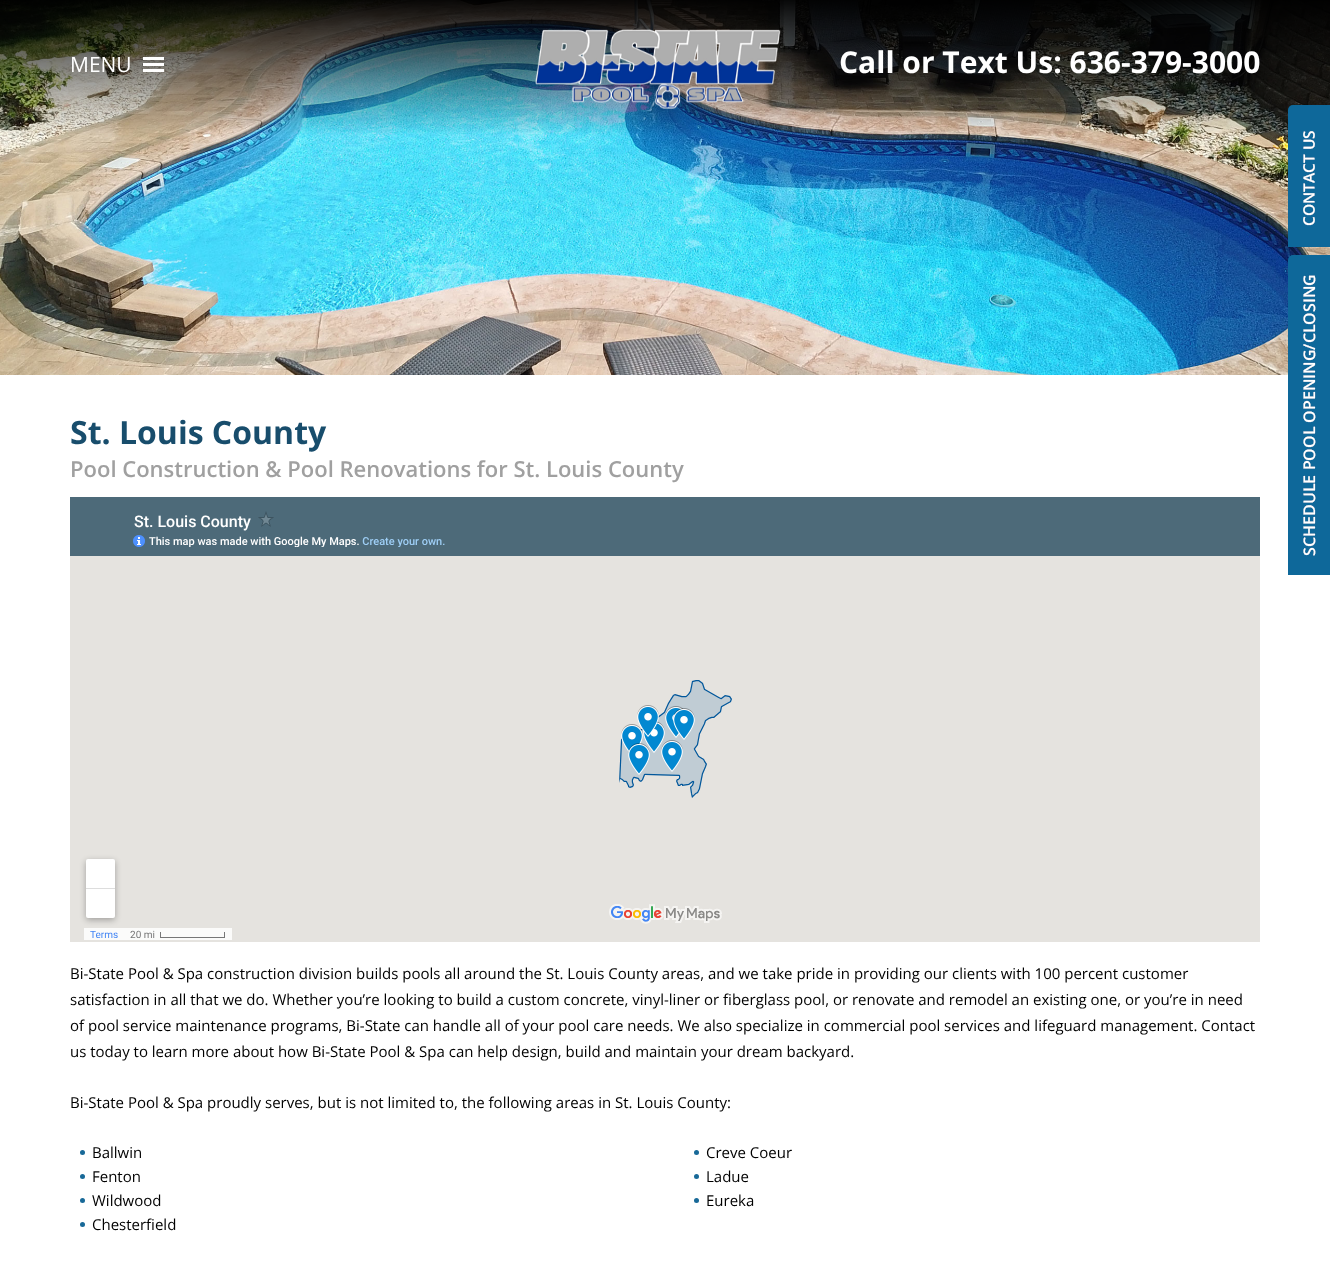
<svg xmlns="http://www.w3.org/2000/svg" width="1330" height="1280">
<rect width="100%" height="100%" fill="#fff"/>
<image x="0" y="0" width="1330" height="375" href="media/1.png"/>
<image x="143" y="57" width="21" height="15" href="media/2.png"/>
<text x="70" y="72" style="font-family:Open Sans;font-size:21px;fill:#fff">MENU</text>
<image x="535" y="29" width="246" height="80" href="media/3.png"/>
<text x="839" y="73" style="font-family:Open Sans;font-size:30px;font-weight:bold;fill:#fff">Call or Text Us: 636-379-3000</text>
<image x="1288" y="105" width="42" height="142" href="media/4.png"/>
<image x="1288" y="255" width="42" height="320" href="media/5.png"/>
<text x="70" y="444" style="font-family:Open Sans;font-size:32px;font-weight:bold;fill:#184d6c">St. Louis County</text>
<text x="70" y="477" style="font-family:Open Sans;font-size:22px;font-weight:600;fill:#a0a0a0">Pool Construction &amp; Pool Renovations for St. Louis County</text>
<image x="70" y="497" width="1190" height="445" href="media/6.png"/>
<text x="70" y="979" style="font-family:Open Sans;font-size:15px;fill:#000">Bi-State Pool &amp; Spa construction division builds pools all around the St. Louis County areas, and we take pride in providing our clients with 100 percent customer</text>
<text x="70" y="1005" style="font-family:Open Sans;font-size:15px;fill:#000">satisfaction in all that we do. Whether you’re looking to build a custom concrete, vinyl-liner or fiberglass pool, or renovate and remodel an existing one, or you’re in need</text>
<text x="70" y="1031" style="font-family:Open Sans;font-size:15px;fill:#000">of pool service maintenance programs, Bi-State can handle all of your pool care needs. We also specialize in commercial pool services and lifeguard management. Contact</text>
<text x="70" y="1057" style="font-family:Open Sans;font-size:15px;fill:#000">us today to learn more about how Bi-State Pool &amp; Spa can help design, build and maintain your dream backyard.</text>
<text x="70" y="1108" style="font-family:Open Sans;font-size:15px;fill:#000">Bi-State Pool &amp; Spa proudly serves, but is not limited to, the following areas in St. Louis County:</text>
<circle cx="82.5" cy="1152.5" r="2.5" fill="#186998"/>
<text x="92" y="1158" style="font-family:Open Sans;font-size:15px;fill:#000">Ballwin</text>
<circle cx="82.5" cy="1176.5" r="2.5" fill="#186998"/>
<text x="92" y="1182" style="font-family:Open Sans;font-size:15px;fill:#000">Fenton</text>
<circle cx="82.5" cy="1200.5" r="2.5" fill="#186998"/>
<text x="92" y="1206" style="font-family:Open Sans;font-size:15px;fill:#000">Wildwood</text>
<circle cx="82.5" cy="1224.5" r="2.5" fill="#186998"/>
<text x="92" y="1230" style="font-family:Open Sans;font-size:15px;fill:#000">Chesterfield</text>
<circle cx="696.5" cy="1152.5" r="2.5" fill="#186998"/>
<text x="706" y="1158" style="font-family:Open Sans;font-size:15px;fill:#000">Creve Coeur</text>
<circle cx="696.5" cy="1176.5" r="2.5" fill="#186998"/>
<text x="706" y="1182" style="font-family:Open Sans;font-size:15px;fill:#000">Ladue</text>
<circle cx="696.5" cy="1200.5" r="2.5" fill="#186998"/>
<text x="706" y="1206" style="font-family:Open Sans;font-size:15px;fill:#000">Eureka</text>
</svg>
